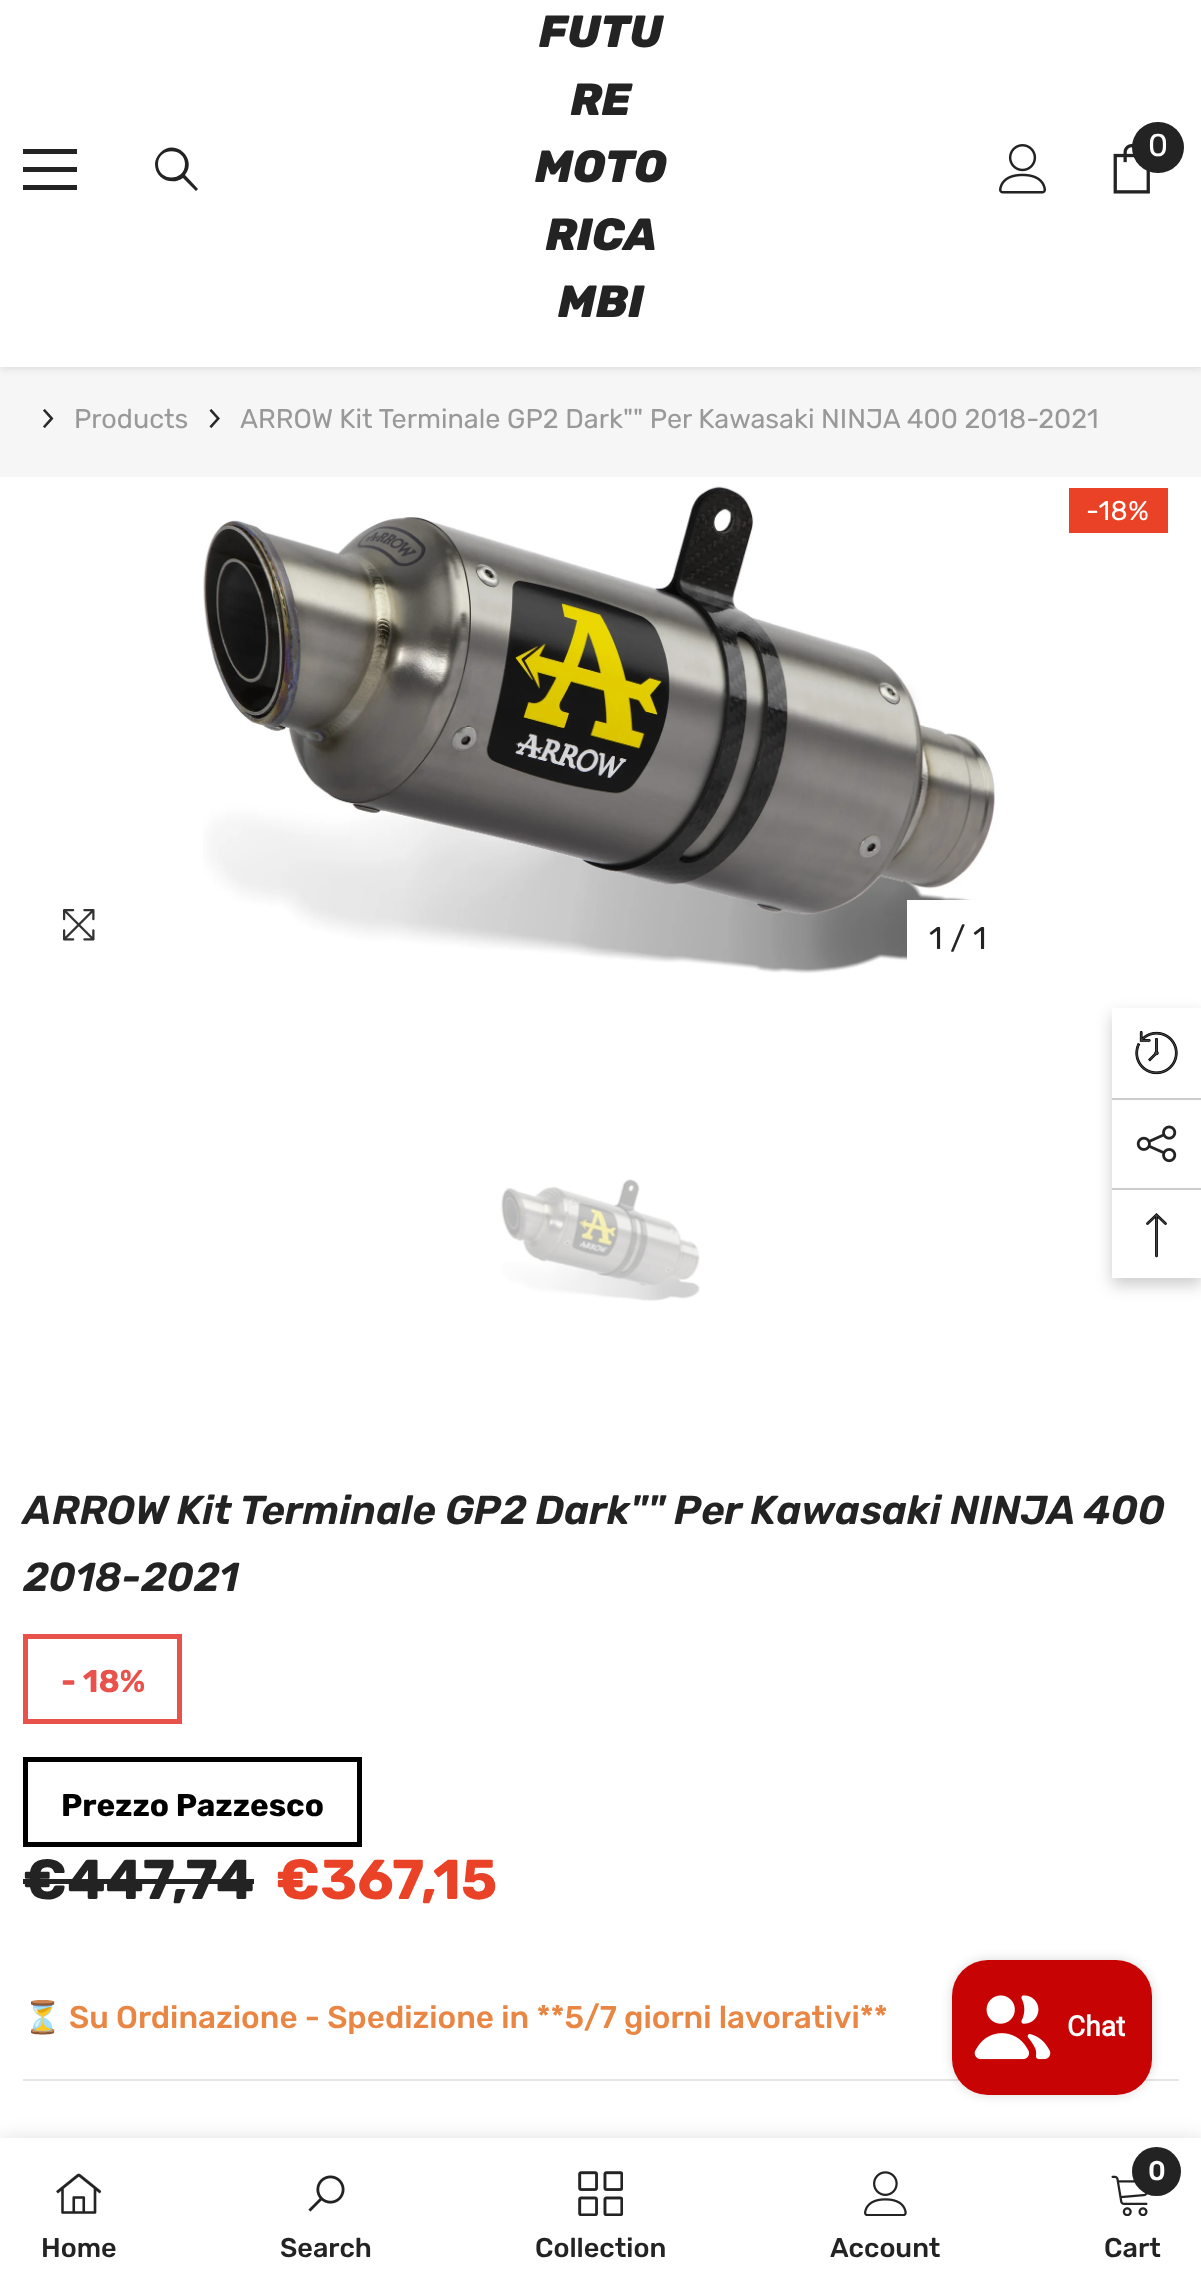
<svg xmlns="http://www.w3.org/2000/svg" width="1201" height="2285">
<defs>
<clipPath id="clip1"><path d="M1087 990h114v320h-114zm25 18h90v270h-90z" clip-rule="evenodd"/></clipPath>
</defs>
<rect width="100%" height="100%" fill="#fff"/>
<rect y="367" width="1201" height="110" fill="#f6f6f6"/>
<rect y="2" width="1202" height="367" fill="#0000001a" filter="blur(3.5px)"/>
<rect width="1201" height="367" fill="#fff"/>
<rect x="23" y="167" width="54" height="5" fill="#232323"/>
<rect x="23" y="149" width="54" height="5" fill="#232323"/>
<rect x="23" y="185" width="54" height="5" fill="#232323"/>
<path d="M155 164c0 15 17 22 28 14l13 13l2-2l-13-14c13-16-10-38-25-22c-3 3-5 7-5 11zm3 0c0-17 27-17 27 0c0 18-27 18-27 0z" fill="#232323"/>
<text x="539" y="47" style="font-family:Rubik;font-size:45px;font-weight:800;font-style:italic;fill:#232323">FUTU</text>
<text x="570" y="115" style="font-family:Rubik;font-size:45px;font-weight:800;font-style:italic;fill:#232323">RE</text>
<text x="535" y="182" style="font-family:Rubik;font-size:45px;font-weight:800;font-style:italic;fill:#232323">MOTO</text>
<text x="545" y="250" style="font-family:Rubik;font-size:45px;font-weight:800;font-style:italic;fill:#232323">RICA</text>
<text x="558" y="317" style="font-family:Rubik;font-size:45px;font-weight:800;font-style:italic;fill:#232323">MBI</text>
<image x="999" y="144" width="47" height="50" href="media/1.png"/>
<image x="1113" y="144" width="37" height="50" href="media/2.png"/>
<rect x="1132" y="122" width="52" height="51" rx="25.5" fill="#232323"/>
<text x="1148" y="156" style="font-family:Rubik;font-size:31.5px;font-weight:300;fill:#fff">0</text>
<image x="43" y="409" width="11" height="19" href="media/3.png"/>
<text x="74" y="428" style="font-family:Rubik;font-size:27px;font-weight:300;fill:#999">Products</text>
<image x="209" y="409" width="11" height="19" href="media/4.png"/>
<text x="240" y="428" style="font-family:Rubik;font-size:27px;font-weight:300;fill:#999">ARROW Kit Terminale GP2 Dark"" Per Kawasaki NINJA 400 2018-2021</text>
<rect x="1069" y="488" width="99" height="45" fill="#ea4226"/>
<text x="1086" y="520" style="font-family:Rubik;font-size:27px;font-weight:300;letter-spacing:0.5px;fill:#fff">-18%</text>
<image x="63" y="909" width="32" height="32" href="media/5.png"/>
<image x="203" y="486" width="794" height="488" href="media/6.png"/>
<rect x="907" y="900" width="90" height="63" fill="#fff"/>
<text x="929" y="949" style="font-family:Rubik;font-size:31.5px;font-weight:300;fill:#232323">1 / 1</text>
<image x="501" y="1179" width="199" height="122" href="media/7.png"/>
<text x="23" y="1524" style="font-family:Rubik;font-size:40.5px;font-weight:600;font-style:italic;fill:#232323">ARROW Kit Terminale GP2 Dark"" Per Kawasaki NINJA 400</text>
<text x="23" y="1591" style="font-family:Rubik;font-size:40.5px;font-weight:600;font-style:italic;fill:#232323">2018-2021</text>
<rect x="25.5" y="1636.5" width="154" height="85" fill="none" stroke="#e9514b" stroke-width="5"/>
<text x="61" y="1692" style="font-family:Rubik;font-size:31.5px;font-weight:bold;fill:#e9514b">- 18%</text>
<rect x="25.5" y="1759.5" width="334" height="85" fill="none" stroke="#000" stroke-width="5"/>
<text x="61" y="1816" style="font-family:Rubik;font-size:31.5px;font-weight:bold;fill:#000">Prezzo Pazzesco</text>
<text x="23" y="1899" style="font-family:Rubik;font-size:56.25px;font-weight:bold;fill:#232323">€447,74</text>
<rect x="23" y="1879" width="231" height="5" fill="#232323"/>
<text x="276" y="1899" style="font-family:Rubik;font-size:56.25px;font-weight:bold;fill:#ea4226">€367,15</text>
<text x="23" y="2028" style="font-family:Noto Color Emoji;font-size:31.5px;fill:#e98644">⏳</text>
<text x="69" y="2028" style="font-family:Rubik;font-size:31.5px;font-weight:500;fill:#e98644">Su Ordinazione - Spedizione in **5/7 giorni lavorativi**</text>
<rect x="23" y="2079" width="1156" height="2" fill="#e6e6e6"/>
<rect y="2138" width="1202" height="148" fill="#0000001f" filter="blur(10px)"/>
<rect y="2138" width="1201" height="147" fill="#fff"/>
<image x="56" y="2173" width="45" height="41" href="media/8.png"/>
<text x="41" y="2257" style="font-family:Rubik;font-size:27px;font-weight:500;fill:#232323">Home</text>
<image x="308" y="2175" width="37" height="37" href="media/9.png"/>
<text x="280" y="2257" style="font-family:Rubik;font-size:27px;font-weight:500;fill:#232323">Search</text>
<image x="578" y="2171" width="45" height="45" href="media/10.png"/>
<text x="535" y="2257" style="font-family:Rubik;font-size:27px;font-weight:500;fill:#232323">Collection</text>
<image x="864" y="2171" width="43" height="45" href="media/11.png"/>
<text x="830" y="2257" style="font-family:Rubik;font-size:27px;font-weight:500;fill:#232323">Account</text>
<image x="1111" y="2175" width="37" height="41" href="media/12.png"/>
<circle cx="1156.5" cy="2171.5" r="24.5" fill="#232323"/>
<text x="1148" y="2180" style="font-family:Rubik;font-size:27px;font-weight:500;fill:#fff">0</text>
<text x="1104" y="2257" style="font-family:Rubik;font-size:27px;font-weight:500;fill:#232323">Cart</text>
<g clip-path="url(#clip1)">
<rect x="1112" y="1015" width="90" height="270" fill="#00000033" filter="blur(8px)"/>
</g>
<image x="1135" y="1031" width="43" height="44" href="media/13.png"/>
<rect x="1112" y="1098" width="89" height="2" fill="#ccc"/>
<image x="1136" y="1125" width="41" height="38" href="media/14.png"/>
<rect x="1112" y="1188" width="89" height="2" fill="#ccc"/>
<image x="1146" y="1213" width="21" height="45" href="media/15.png"/>
<rect x="952" y="1960" width="200" height="135" rx="36" fill="#00000026" filter="blur(5.5px)"/>
<rect x="952" y="1960" width="200" height="135" rx="36" fill="#c70303"/>
<image x="974" y="1995" width="77" height="65" href="media/16.png"/>
<text x="1067" y="2036" style="font-family:Roboto;font-size:28px;font-weight:bold;fill:#fff">Chat</text>
</svg>
